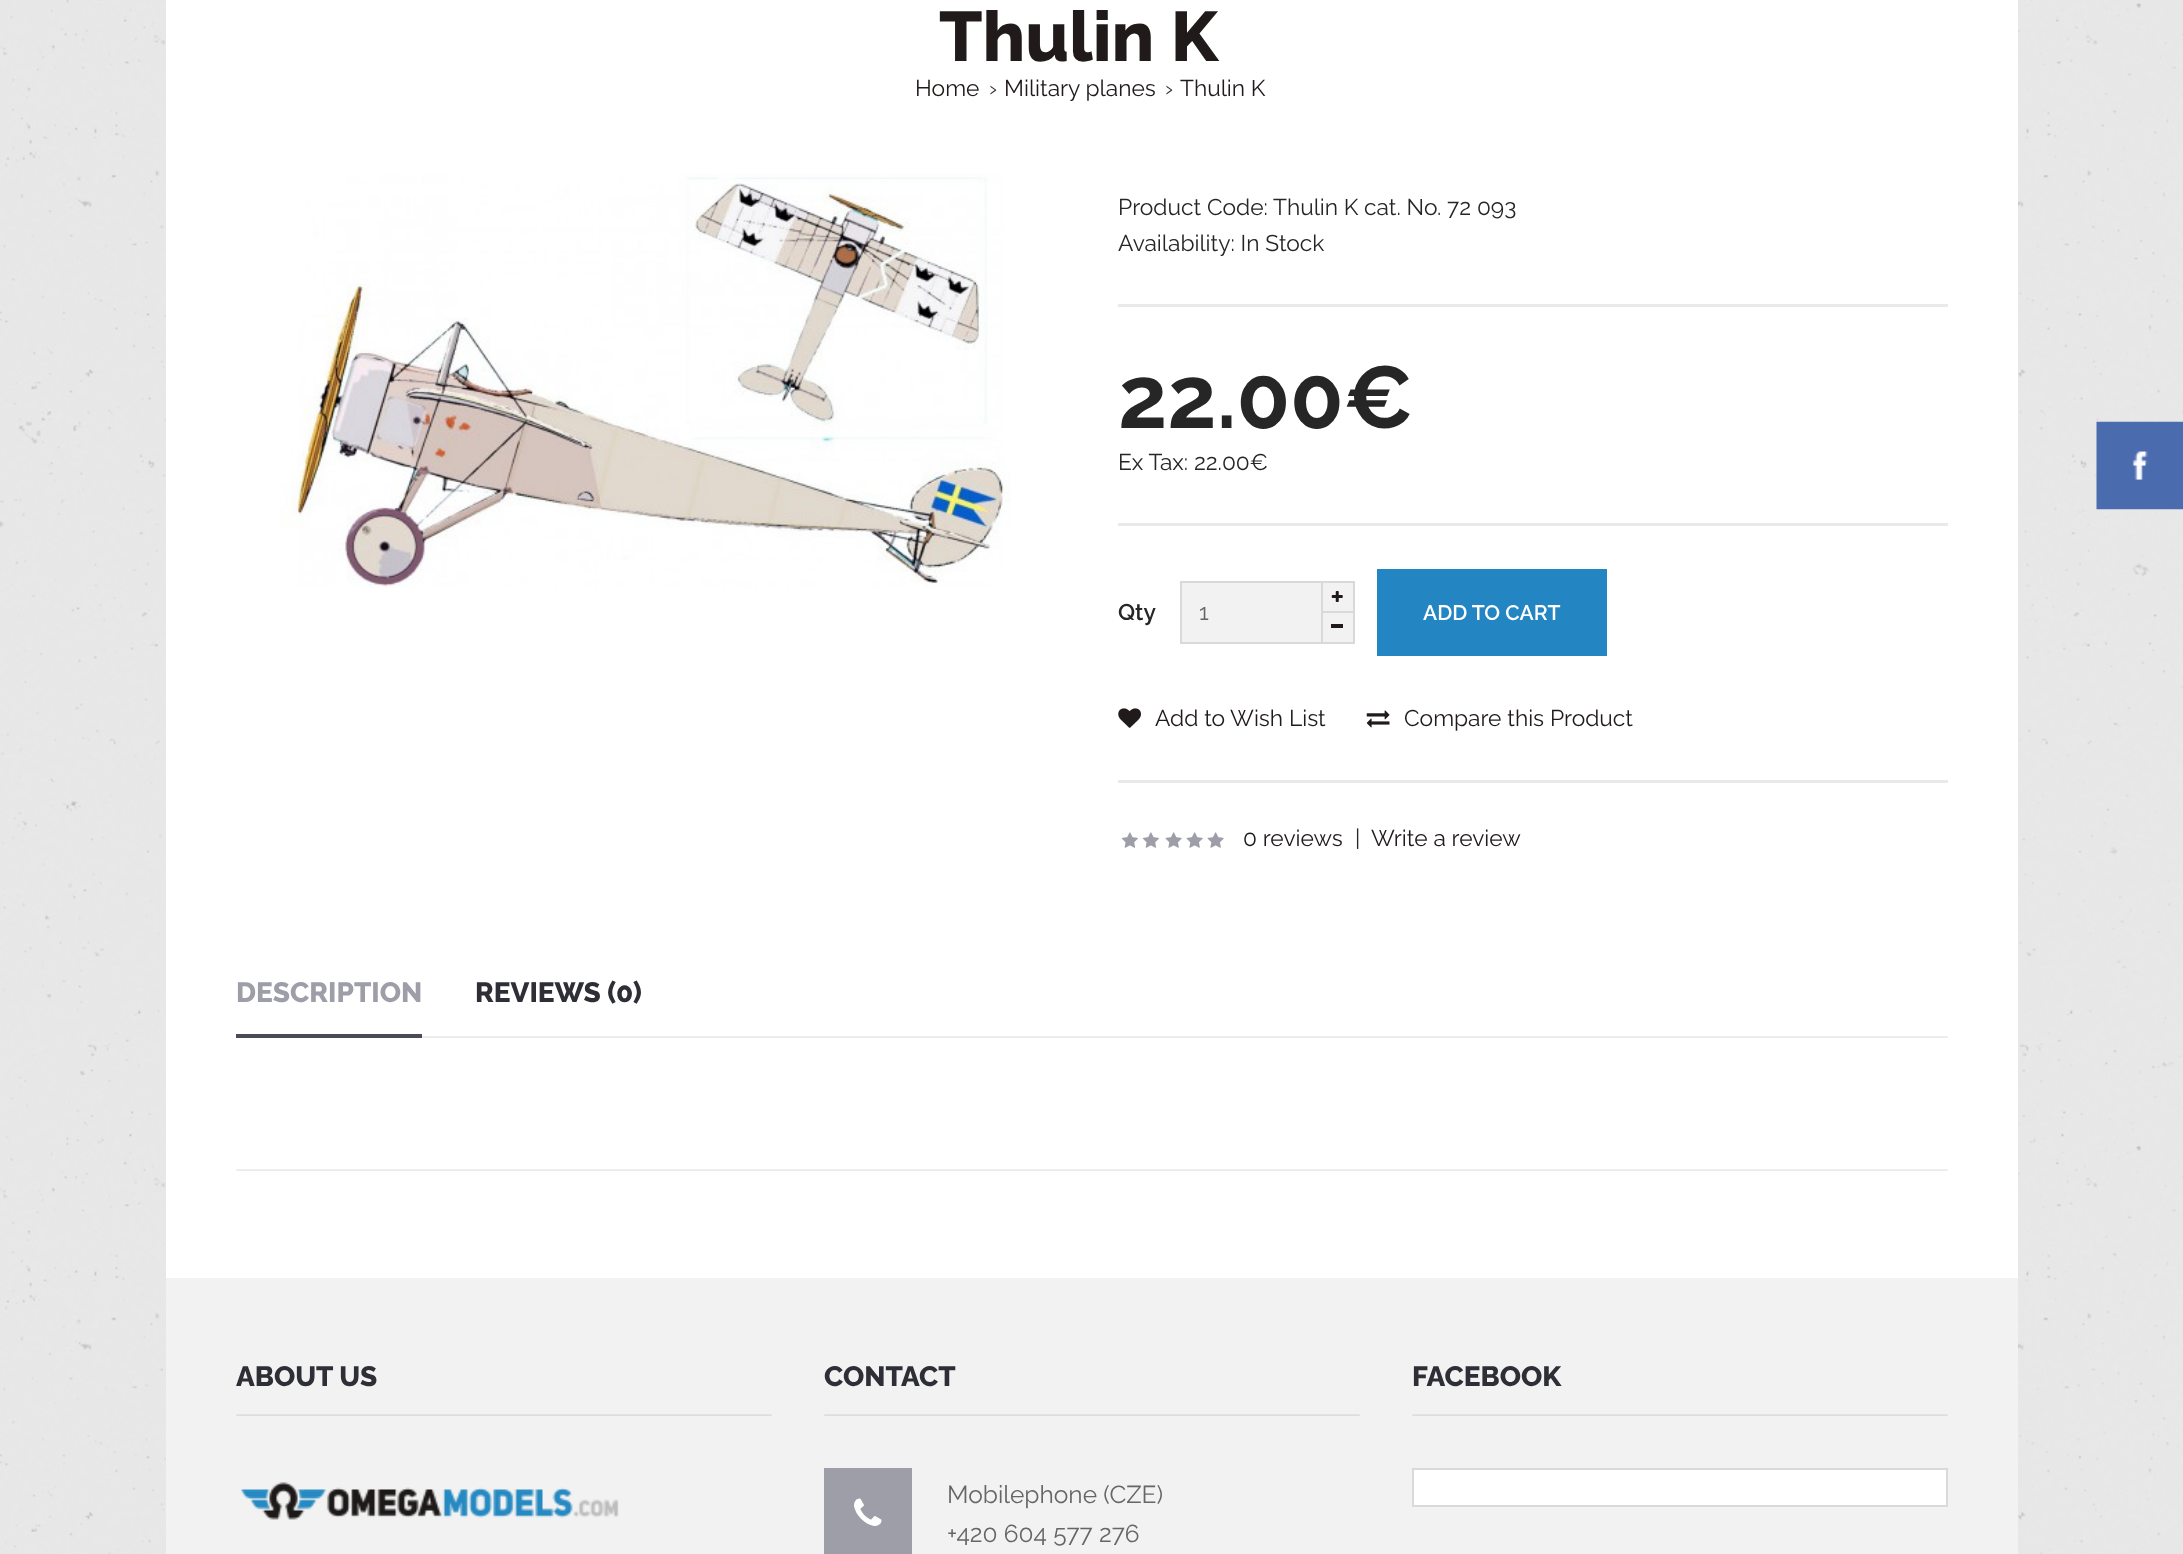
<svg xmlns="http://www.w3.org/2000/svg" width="2183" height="1554">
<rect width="100%" height="100%" fill="#fff"/>
<image x="0" y="0" width="2183" height="1554" href="media/1.png"/>
<rect x="166" width="1852" height="1278" fill="#fff"/>
<text x="939" y="61" style="font-family:Raleway;font-size:70px;font-weight:800;fill:#211a1a">Thulin K</text>
<text x="915" y="96" style="font-family:Raleway;font-size:22.75px;fill:#211a1a">Home</text>
<text x="989" y="96" style="font-family:Raleway;font-size:22.75px;fill:#262626">›</text>
<text x="1004" y="96" style="font-family:Raleway;font-size:22.75px;fill:#211a1a">Military planes</text>
<text x="1165" y="96" style="font-family:Raleway;font-size:22.75px;fill:#262626">›</text>
<text x="1180" y="96" style="font-family:Raleway;font-size:22.75px;fill:#211a1a">Thulin K</text>
<image x="280" y="174" width="731" height="414" href="media/2.png"/>
<rect x="1118" y="304" width="830" height="3" fill="#e9e9e9"/>
<text x="1118" y="215" style="font-family:Raleway;font-size:22.75px;fill:#262626">Product Code:</text>
<text x="1273" y="215" style="font-family:Raleway;font-size:22.75px;fill:#262626">Thulin K cat. No. 72 093</text>
<text x="1118" y="251" style="font-family:Raleway;font-size:22.75px;fill:#262626">Availability: In Stock</text>
<rect x="1118" y="523" width="830" height="3" fill="#e9e9e9"/>
<text x="1118" y="428" style="font-family:Raleway;font-size:87.5px;font-weight:bold;fill:#262626">22.00€</text>
<text x="1118" y="470" style="font-family:Raleway;font-size:22.75px;fill:#262626">Ex Tax: 22.00€</text>
<rect x="1118" y="780" width="830" height="3" fill="#e9e9e9"/>
<text x="1118" y="620" style="font-family:Raleway;font-size:22.75px;font-weight:600;fill:#262626">Qty</text>
<rect x="1181" y="582" width="173" height="61" fill="#f2f2f2" stroke="#d9d9d9" stroke-width="2"/>
<text x="1199" y="620" style="font-family:Raleway;font-size:22.75px;fill:#666">1</text>
<rect x="1321" y="611" width="32" height="2" fill="#d9d9d9"/>
<rect x="1321" y="583" width="2" height="59" fill="#d9d9d9"/>
<image x="1331" y="591" width="12" height="11" href="media/3.png"/>
<rect x="1331" y="624" width="12" height="4" fill="#211a1a"/>
<rect x="1377" y="569" width="230" height="87" fill="#2386c3"/>
<text x="1423" y="620" style="font-family:Raleway;font-size:21px;font-weight:600;fill:#fff">ADD TO CART</text>
<image x="1118" y="708" width="23" height="20" href="media/4.png"/>
<text x="1155" y="726" style="font-family:Raleway;font-size:22.75px;fill:#211a1a">Add to Wish List</text>
<image x="1366" y="710" width="24" height="18" href="media/5.png"/>
<text x="1404" y="726" style="font-family:Raleway;font-size:22.75px;fill:#211a1a">Compare this Product</text>
<image x="1121" y="832" width="17" height="16" href="media/6.png"/>
<image x="1142" y="832" width="17" height="16" href="media/6.png"/>
<image x="1165" y="832" width="17" height="16" href="media/7.png"/>
<image x="1186" y="832" width="17" height="16" href="media/7.png"/>
<image x="1207" y="832" width="17" height="16" href="media/7.png"/>
<text x="1243" y="846" style="font-family:Raleway;font-size:22.75px;fill:#211a1a">0 reviews</text>
<text x="1355" y="846" style="font-family:Raleway;font-size:22.75px;fill:#262626">|</text>
<text x="1371" y="846" style="font-family:Raleway;font-size:22.75px;fill:#211a1a">Write a review</text>
<image x="422" y="1036" width="1526" height="2" href="media/8.png"/>
<rect x="236" y="1034" width="186" height="4" fill="#494b56"/>
<text x="236" y="1002" style="font-family:Raleway;font-size:28px;font-weight:800;fill:#9d9ea8">DESCRIPTION</text>
<text x="475" y="1002" style="font-family:Raleway;font-size:28px;font-weight:800;fill:#2e2f36">REVIEWS (0)</text>
<image x="236" y="1169" width="1712" height="2" href="media/9.png"/>
<rect x="166" y="1278" width="1852" height="276" fill="#f2f2f2"/>
<image x="236" y="1414" width="536" height="2" href="media/10.png"/>
<text x="236" y="1386" style="font-family:Raleway;font-size:28px;font-weight:800;fill:#2e2f36">ABOUT US</text>
<image x="241" y="1482" width="378" height="38" href="media/11.png"/>
<image x="824" y="1414" width="536" height="2" href="media/10.png"/>
<text x="824" y="1386" style="font-family:Raleway;font-size:28px;font-weight:800;fill:#2e2f36">CONTACT</text>
<rect x="824" y="1468" width="88" height="86" fill="#9d9ea8"/>
<image x="854" y="1498" width="28" height="28" href="media/12.png"/>
<text x="947" y="1503" style="font-family:Raleway;font-size:24.5px;fill:#666">Mobilephone (CZE)</text>
<text x="947" y="1542" style="font-family:Raleway;font-size:24.5px;fill:#666">+420 604 577 276</text>
<image x="1412" y="1414" width="536" height="2" href="media/10.png"/>
<text x="1412" y="1386" style="font-family:Raleway;font-size:28px;font-weight:800;fill:#2e2f36">FACEBOOK</text>
<rect x="1413" y="1469" width="534" height="37" fill="#fff" stroke="#d9d9d9" stroke-width="2"/>
<image x="2096" y="421" width="87" height="89" href="media/13.png"/>
</svg>
